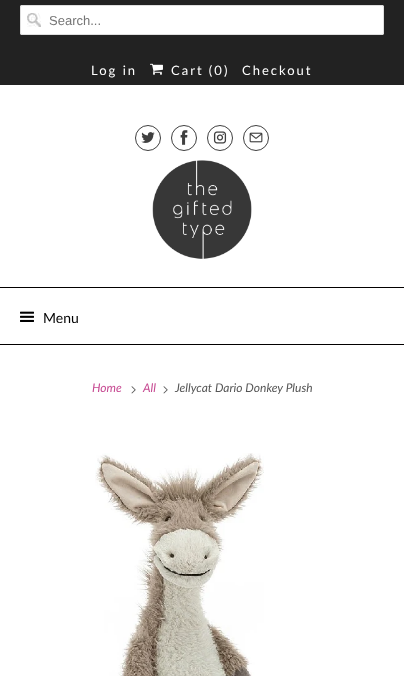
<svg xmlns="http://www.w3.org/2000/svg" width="404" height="676">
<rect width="100%" height="100%" fill="#fff"/>
<rect width="404" height="85" fill="#222"/>
<rect x="20" y="5" width="364" height="30" rx="2" fill="#fff"/>
<image x="27" y="13" width="14" height="14" href="media/1.png"/>
<rect x="20.5" y="5.5" width="363" height="29" rx="1.5" fill="none" stroke="#dfdfdf"/>
<text x="49" y="25" style="font-family:Liberation Sans;font-size:13px;fill:#757575">Search...</text>
<text x="91" y="75" style="font-family:Lato;font-size:13px;letter-spacing:2px;fill:#fff">Log in</text>
<image x="150" y="63" width="13" height="12" href="media/2.png"/>
<text x="171" y="75" style="font-family:Lato;font-size:13px;letter-spacing:2px;fill:#fff">Cart (0)</text>
<text x="242" y="75" style="font-family:Lato;font-size:13px;letter-spacing:2px;fill:#fff">Checkout</text>
<circle cx="148" cy="138" r="12.5" fill="none" stroke="#404040"/>
<image x="141" y="132" width="14" height="11" href="media/3.png"/>
<circle cx="184" cy="138" r="12.5" fill="none" stroke="#404040"/>
<image x="180" y="130" width="8" height="15" href="media/4.png"/>
<circle cx="220" cy="138" r="12.5" fill="none" stroke="#404040"/>
<image x="213" y="131" width="14" height="13" href="media/5.png"/>
<circle cx="256" cy="138" r="12.5" fill="none" stroke="#404040"/>
<image x="249" y="132" width="14" height="11" href="media/6.png"/>
<image x="152" y="160" width="100" height="99" href="media/7.png"/>
<rect y="287" width="404" height="1" fill="#020000"/>
<rect y="344" width="404" height="1" fill="#020000"/>
<image x="20" y="311" width="14" height="11" href="media/8.png"/>
<text x="43" y="323" style="font-family:Lato;font-size:14px;fill:#000">Menu</text>
<text x="92" y="392" style="font-family:Lato;font-size:12px;font-style:italic;fill:#c64891">Home</text>
<image x="131" y="386" width="5" height="8" href="media/9.png"/>
<text x="143" y="392" style="font-family:Lato;font-size:12px;font-style:italic;fill:#c64891">All</text>
<image x="163" y="386" width="5" height="8" href="media/9.png"/>
<text x="175" y="392" style="font-family:Lato;font-size:12px;font-style:italic;fill:#555">Jellycat Dario Donkey Plush</text>
<image x="95" y="453" width="169" height="223" href="media/10.png"/>
</svg>
